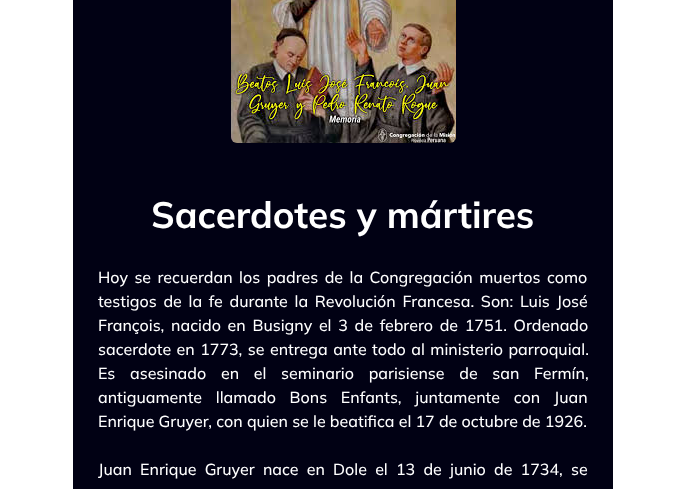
<svg xmlns="http://www.w3.org/2000/svg" width="686" height="489">
<rect width="100%" height="100%" fill="#fff"/>
<rect x="73" width="540" height="489" fill="#010114"/>
<image x="231" y="0" width="225" height="143" href="media/1.png"/>
<text x="151" y="228" style="font-family:Mulish;font-size:36.75px;font-weight:bold;fill:#fff">Sacerdotes y mártires</text>
<text x="98" y="283" word-spacing="2.25" style="font-family:Mulish;font-size:16px;font-weight:500;fill:#fff">Hoy se recuerdan los padres de la Congregación muertos como</text>
<text x="98" y="307" word-spacing="2.5" style="font-family:Mulish;font-size:16px;font-weight:500;fill:#fff">testigos de la fe durante la Revolución Francesa. Son:</text>
<text x="520" y="307" word-spacing="2.5" style="font-family:Mulish;font-size:16px;font-weight:500;fill:#fff">Luis José</text>
<text x="98" y="331" word-spacing="2.5" style="font-family:Mulish;font-size:16px;font-weight:500;fill:#fff">François, nacido en Busigny el 3 de febrero de 1751. Ordenado</text>
<text x="98" y="355" word-spacing="1.25" style="font-family:Mulish;font-size:16px;font-weight:500;fill:#fff">sacerdote en 1773, se entrega ante todo al ministerio parroquial.</text>
<text x="98" y="379" word-spacing="10.5" style="font-family:Mulish;font-size:16px;font-weight:500;fill:#fff">Es asesinado en el seminario parisiense de san Fermín,</text>
<text x="98" y="403" word-spacing="9.5" style="font-family:Mulish;font-size:16px;font-weight:500;fill:#fff">antiguamente llamado Bons Enfants, juntamente con Juan</text>
<text x="98" y="427" style="font-family:Mulish;font-size:16px;font-weight:500;fill:#fff">Enrique Gruyer, con quien se le beatifica el 17 de octubre de 1926.</text>
<text x="98" y="475" word-spacing="4" style="font-family:Mulish;font-size:16px;font-weight:500;fill:#fff">Juan Enrique Gruyer nace en Dole el 13 de junio de 1734, se</text>
</svg>
